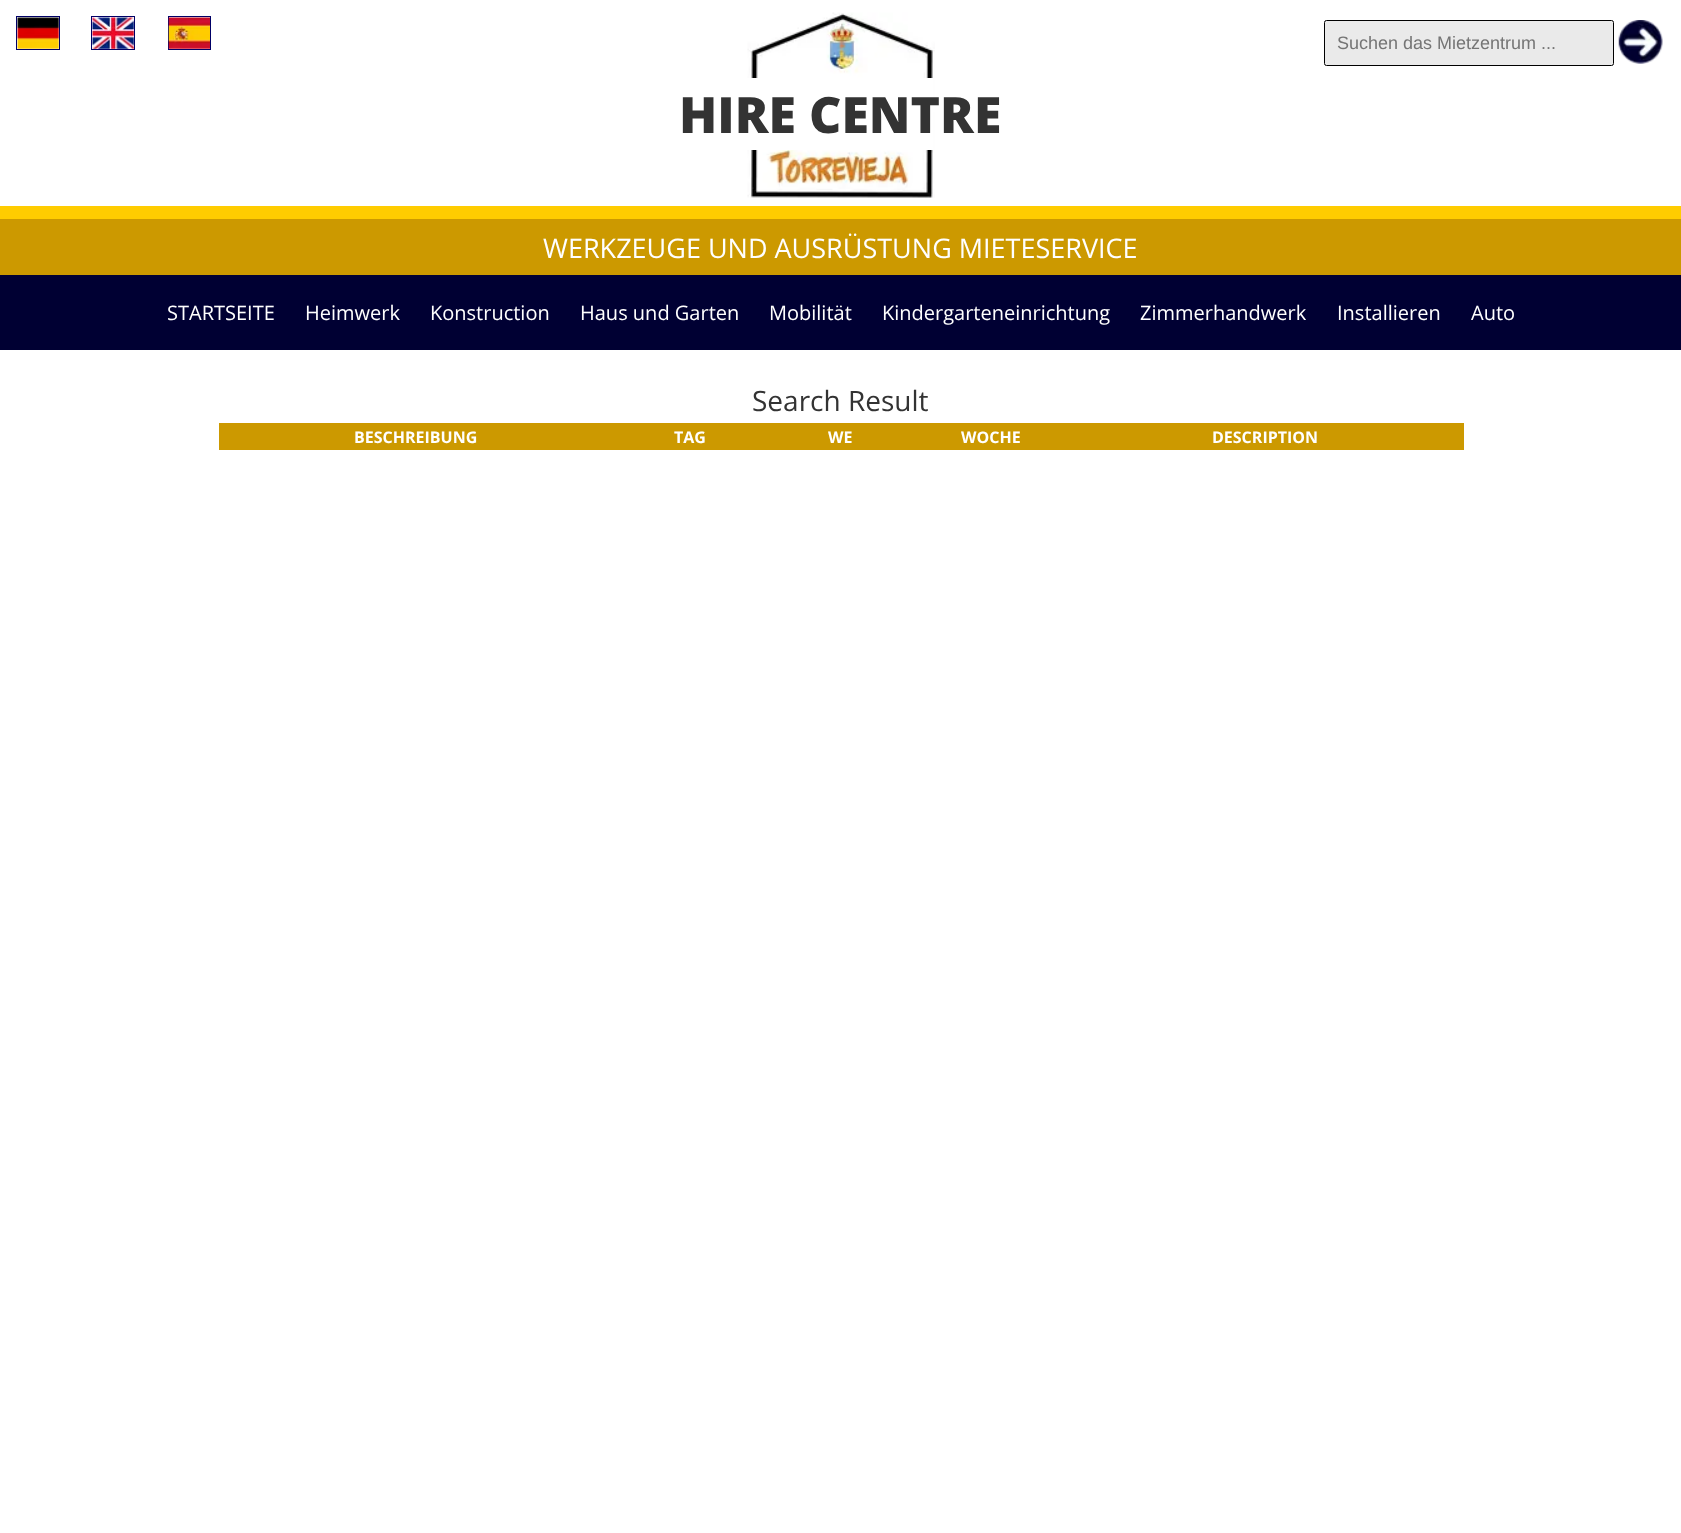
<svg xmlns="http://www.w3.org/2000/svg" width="1681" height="1533">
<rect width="100%" height="100%" fill="#fff"/>
<rect x="16.5" y="16.5" width="43" height="33" fill="none" stroke="#006"/>
<image x="17" y="17" width="42" height="32" href="media/1.png"/>
<rect x="91.5" y="16.5" width="43" height="33" fill="none" stroke="#006"/>
<image x="92" y="17" width="42" height="32" href="media/2.png"/>
<rect x="168.5" y="16.5" width="42" height="33" fill="none" stroke="#006"/>
<image x="168" y="17" width="42" height="32" href="media/3.png"/>
<rect y="206" width="1681" height="13" fill="#fc0"/>
<rect x="1324.5" y="20.5" width="289" height="45" rx="2" fill="#eaeaea" stroke="#000"/>
<text x="1337" y="49" style="font-family:Liberation Sans;font-size:18px;fill:#757575">Suchen das Mietzentrum ...</text>
<image x="1618" y="20" width="45" height="44" href="media/4.png"/>
<image x="747" y="12" width="188" height="186" href="media/5.png"/>
<rect x="747" y="78" width="186" height="72" fill="#fff"/>
<text x="679" y="133" style="font-family:Open Sans;font-size:50px;font-weight:800;fill:#333">HIRE CENTRE</text>
<rect y="219" width="1681" height="56" fill="#c90"/>
<text x="543" y="258" style="font-family:Open Sans;font-size:27px;fill:#fff">WERKZEUGE UND AUSRÜSTUNG MIETESERVICE</text>
<rect y="275" width="1681" height="75" fill="#003"/>
<text x="167" y="320" style="font-family:Open Sans;font-size:20px;fill:#fff">STARTSEITE</text>
<text x="305" y="320" style="font-family:Open Sans;font-size:20px;fill:#fff">Heimwerk</text>
<text x="430" y="320" style="font-family:Open Sans;font-size:20px;fill:#fff">Konstruction</text>
<text x="580" y="320" style="font-family:Open Sans;font-size:20px;fill:#fff">Haus und Garten</text>
<text x="769" y="320" style="font-family:Open Sans;font-size:20px;fill:#fff">Mobilität</text>
<text x="882" y="320" style="font-family:Open Sans;font-size:20px;fill:#fff">Kindergarteneinrichtung</text>
<text x="1140" y="320" style="font-family:Open Sans;font-size:20px;fill:#fff">Zimmerhandwerk</text>
<text x="1337" y="320" style="font-family:Open Sans;font-size:20px;fill:#fff">Installieren</text>
<text x="1471" y="320" style="font-family:Open Sans;font-size:20px;fill:#fff">Auto</text>
<text x="752" y="411" style="font-family:Open Sans;font-size:28px;fill:#333">Search Result</text>
<rect x="219" y="423" width="1245" height="27" fill="#c90"/>
<text x="354" y="443" style="font-family:Open Sans;font-size:16px;font-weight:bold;fill:#fff">BESCHREIBUNG</text>
<text x="674" y="443" style="font-family:Open Sans;font-size:16px;font-weight:bold;fill:#fff">TAG</text>
<text x="828" y="443" style="font-family:Open Sans;font-size:16px;font-weight:bold;fill:#fff">WE</text>
<text x="961" y="443" style="font-family:Open Sans;font-size:16px;font-weight:bold;fill:#fff">WOCHE</text>
<text x="1212" y="443" style="font-family:Open Sans;font-size:16px;font-weight:bold;fill:#fff">DESCRIPTION</text>
</svg>
